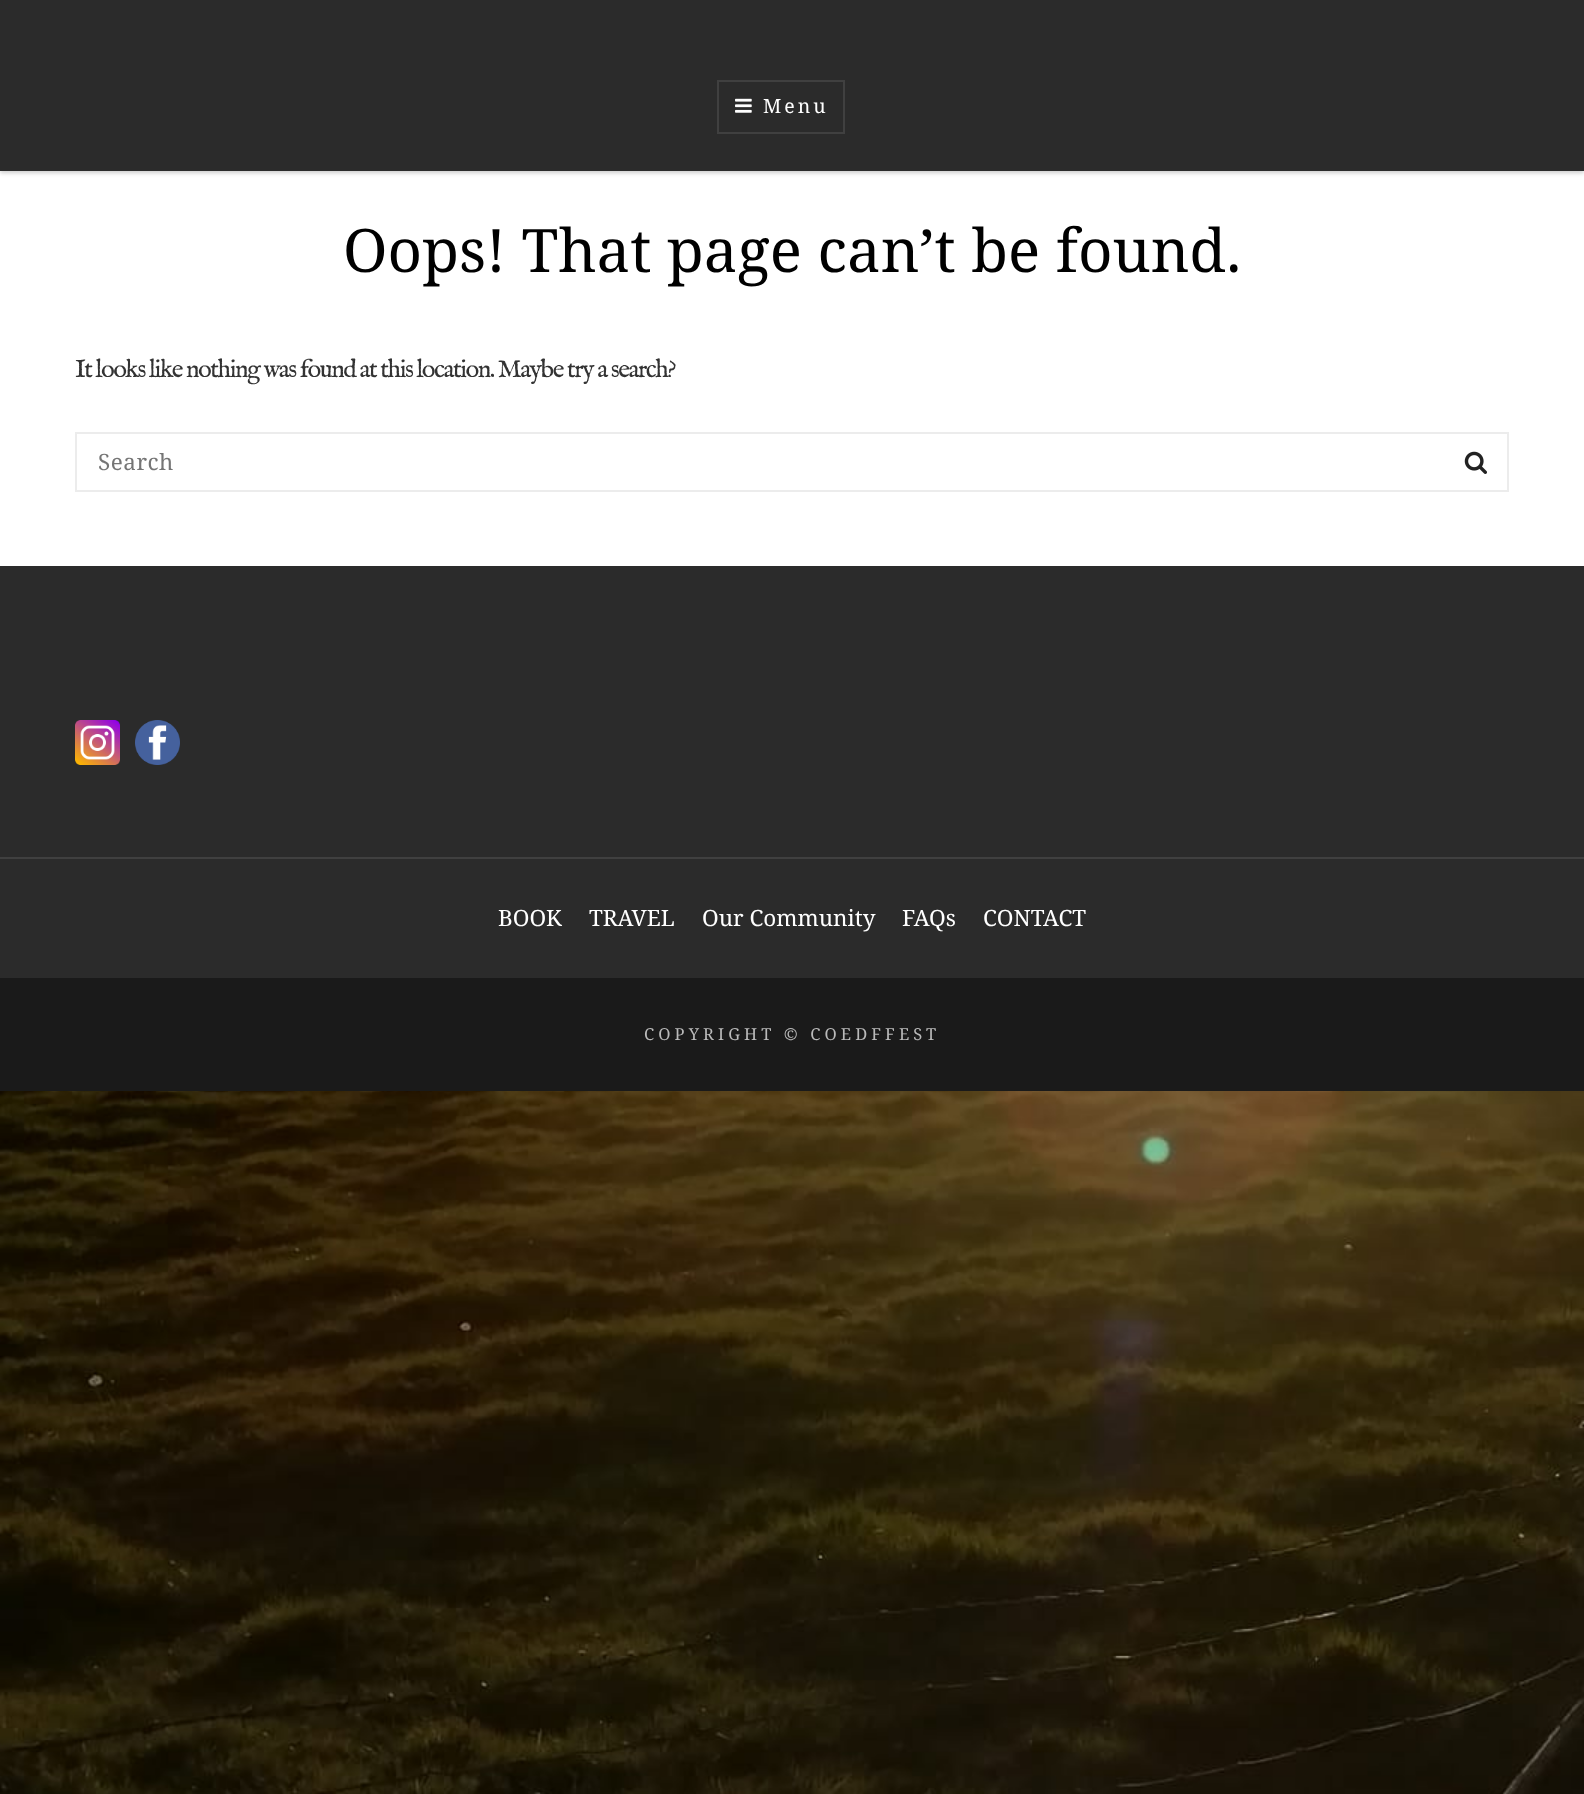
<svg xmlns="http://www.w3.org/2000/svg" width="1584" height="1794">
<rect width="100%" height="100%" fill="#fff"/>
<image x="0" y="1091" width="1584" height="703" href="media/1.png"/>
<rect y="2" width="1584" height="171" fill="#00000033" filter="blur(2px)"/>
<rect width="1584" height="171" fill="#2b2b2b"/>
<rect x="718" y="81" width="126" height="52" fill="none" stroke="#404040" stroke-width="2"/>
<image x="735" y="98" width="17" height="15" href="media/2.png"/>
<text x="763" y="113" style="font-family:Noto Serif;font-size:19.5px;letter-spacing:3px;fill:#fff">Menu</text>
<text x="343" y="272" style="font-family:Noto Serif;font-size:60px;fill:#000">Oops! That page can’t be found.</text>
<text x="75" y="377" style="font-family:IM FELL English;font-size:25.5px;letter-spacing:-1.5px;fill:#333">It looks like nothing was found at this location. Maybe try a search?</text>
<rect x="76" y="433" width="1432" height="58" fill="none" stroke="#ececec" stroke-width="2"/>
<text x="98" y="470" style="font-family:Noto Serif;font-size:22.5px;letter-spacing:0.5px;fill:#757575">Search</text>
<image x="1464" y="451" width="23" height="23" href="media/3.png"/>
<rect y="566" width="1584" height="412" fill="#2b2b2b"/>
<image x="75" y="720" width="45" height="45" href="media/4.png"/>
<image x="135" y="720" width="45" height="45" href="media/5.png"/>
<rect y="857" width="1584" height="2" fill="#404040"/>
<text x="498" y="926" style="font-family:Noto Serif;font-size:22.5px;fill:#fff">BOOK</text>
<text x="589" y="926" style="font-family:Noto Serif;font-size:22.5px;fill:#fff">TRAVEL</text>
<text x="702" y="926" style="font-family:Noto Serif;font-size:22.5px;fill:#fff">Our Community</text>
<text x="902" y="926" style="font-family:Noto Serif;font-size:22.5px;fill:#fff">FAQs</text>
<text x="983" y="926" style="font-family:Noto Serif;font-size:22.5px;fill:#fff">CONTACT</text>
<rect y="978" width="1584" height="113" fill="#1a1a1a"/>
<text x="644" y="1040" style="font-family:Noto Serif;font-size:16.5px;letter-spacing:4.1px;fill:#bababa">COPYRIGHT © COEDFFEST</text>
</svg>
